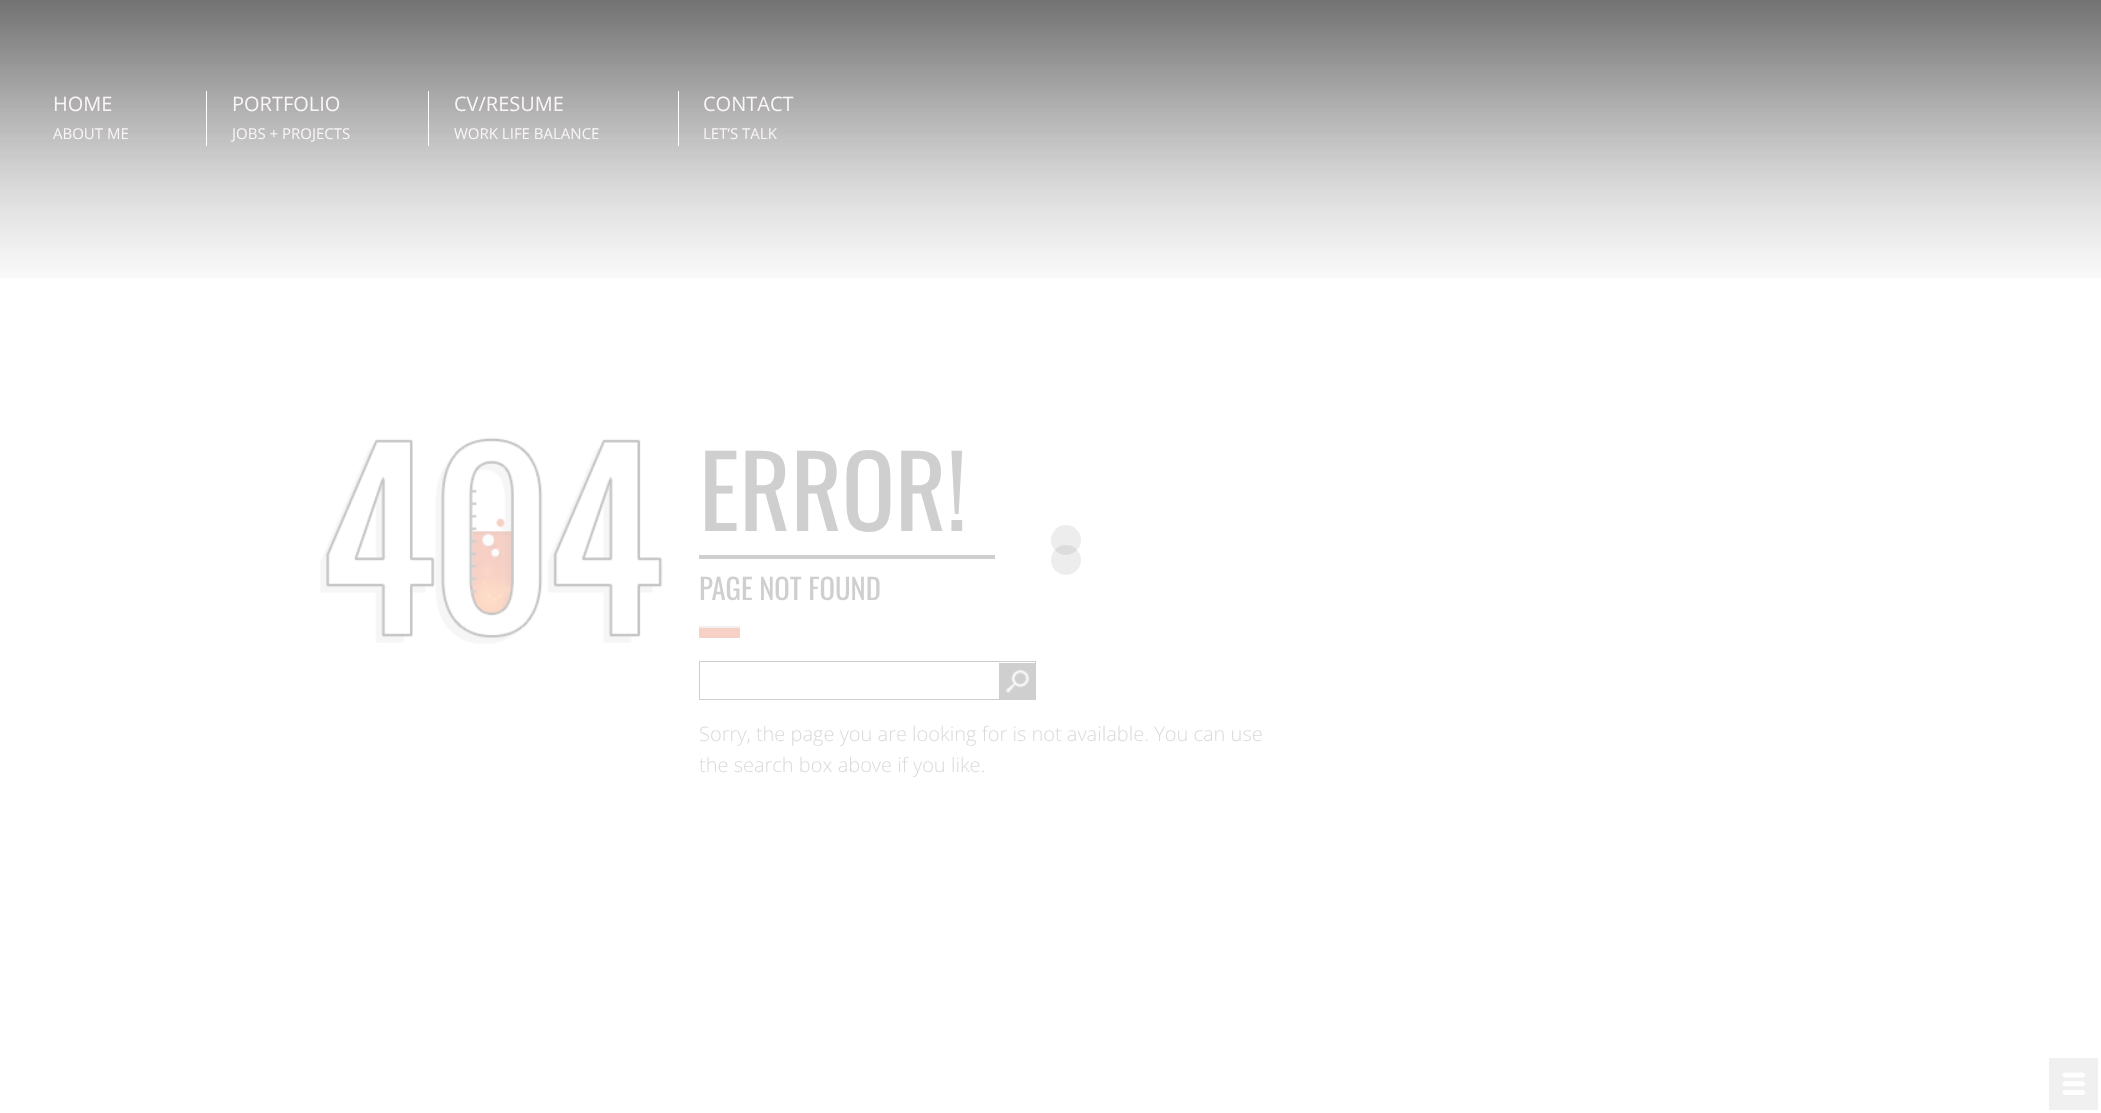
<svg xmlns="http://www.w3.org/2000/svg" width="2101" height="1113">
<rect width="100%" height="100%" fill="#fff"/>
<image x="0" y="0" width="2101" height="278" href="media/1.png"/>
<text x="53" y="111" style="font-family:Open Sans;font-size:20px;fill:#faf6f5">HOME</text>
<text x="53" y="139" style="font-family:Open Sans;font-size:15px;fill:#faf6f5">ABOUT ME</text>
<rect x="206" y="91" width="1" height="55" fill="#fff"/>
<text x="232" y="111" style="font-family:Open Sans;font-size:20px;fill:#faf6f5">PORTFOLIO</text>
<text x="232" y="139" style="font-family:Open Sans;font-size:15px;fill:#faf6f5">JOBS + PROJECTS</text>
<rect x="428" y="91" width="1" height="55" fill="#fff"/>
<text x="454" y="111" style="font-family:Open Sans;font-size:20px;fill:#faf6f5">CV/RESUME</text>
<text x="454" y="139" style="font-family:Open Sans;font-size:15px;fill:#faf6f5">WORK LIFE BALANCE</text>
<rect x="678" y="91" width="1" height="55" fill="#fff"/>
<text x="703" y="111" style="font-family:Open Sans;font-size:20px;fill:#faf6f5">CONTACT</text>
<text x="703" y="139" style="font-family:Open Sans;font-size:15px;fill:#faf6f5">LET’S TALK</text>
<image x="320" y="437" width="343" height="207" href="media/2.png"/>
<text x="699" y="531" style="font-family:Oswald;font-size:99px;fill:#cfcfcf">ERROR!</text>
<rect x="699" y="555" width="296" height="4" fill="#cfcfcf"/>
<text x="699" y="600" style="font-family:Oswald;font-size:28.75px;fill:#cfcfcf">PAGE NOT FOUND</text>
<rect x="699" y="626" width="41" height="2" fill="#f0f0f0"/>
<rect x="699" y="628" width="41" height="10" fill="#f7d0c6"/>
<rect x="699.5" y="661.5" width="336" height="38" fill="none" stroke="#cfcfcf"/>
<rect x="999" y="663" width="36" height="36" fill="#cfcfcf"/>
<image x="1006" y="670" width="23" height="23" href="media/3.png"/>
<text x="699" y="741" style="font-family:Open Sans;font-size:20px;font-weight:300;fill:#dadada">Sorry, the page you are looking for is not available. You can use</text>
<text x="699" y="772" style="font-family:Open Sans;font-size:20px;font-weight:300;fill:#dadada">the search box above if you like.</text>
<circle cx="1066" cy="540" r="15" fill="#ededed"/>
<circle cx="1066" cy="560" r="15" fill="#3c3c3c17"/>
<rect x="2049" y="1058" width="49" height="52" fill="#f0f0f0"/>
<image x="2062" y="1072" width="23" height="23" href="media/4.png"/>
</svg>
